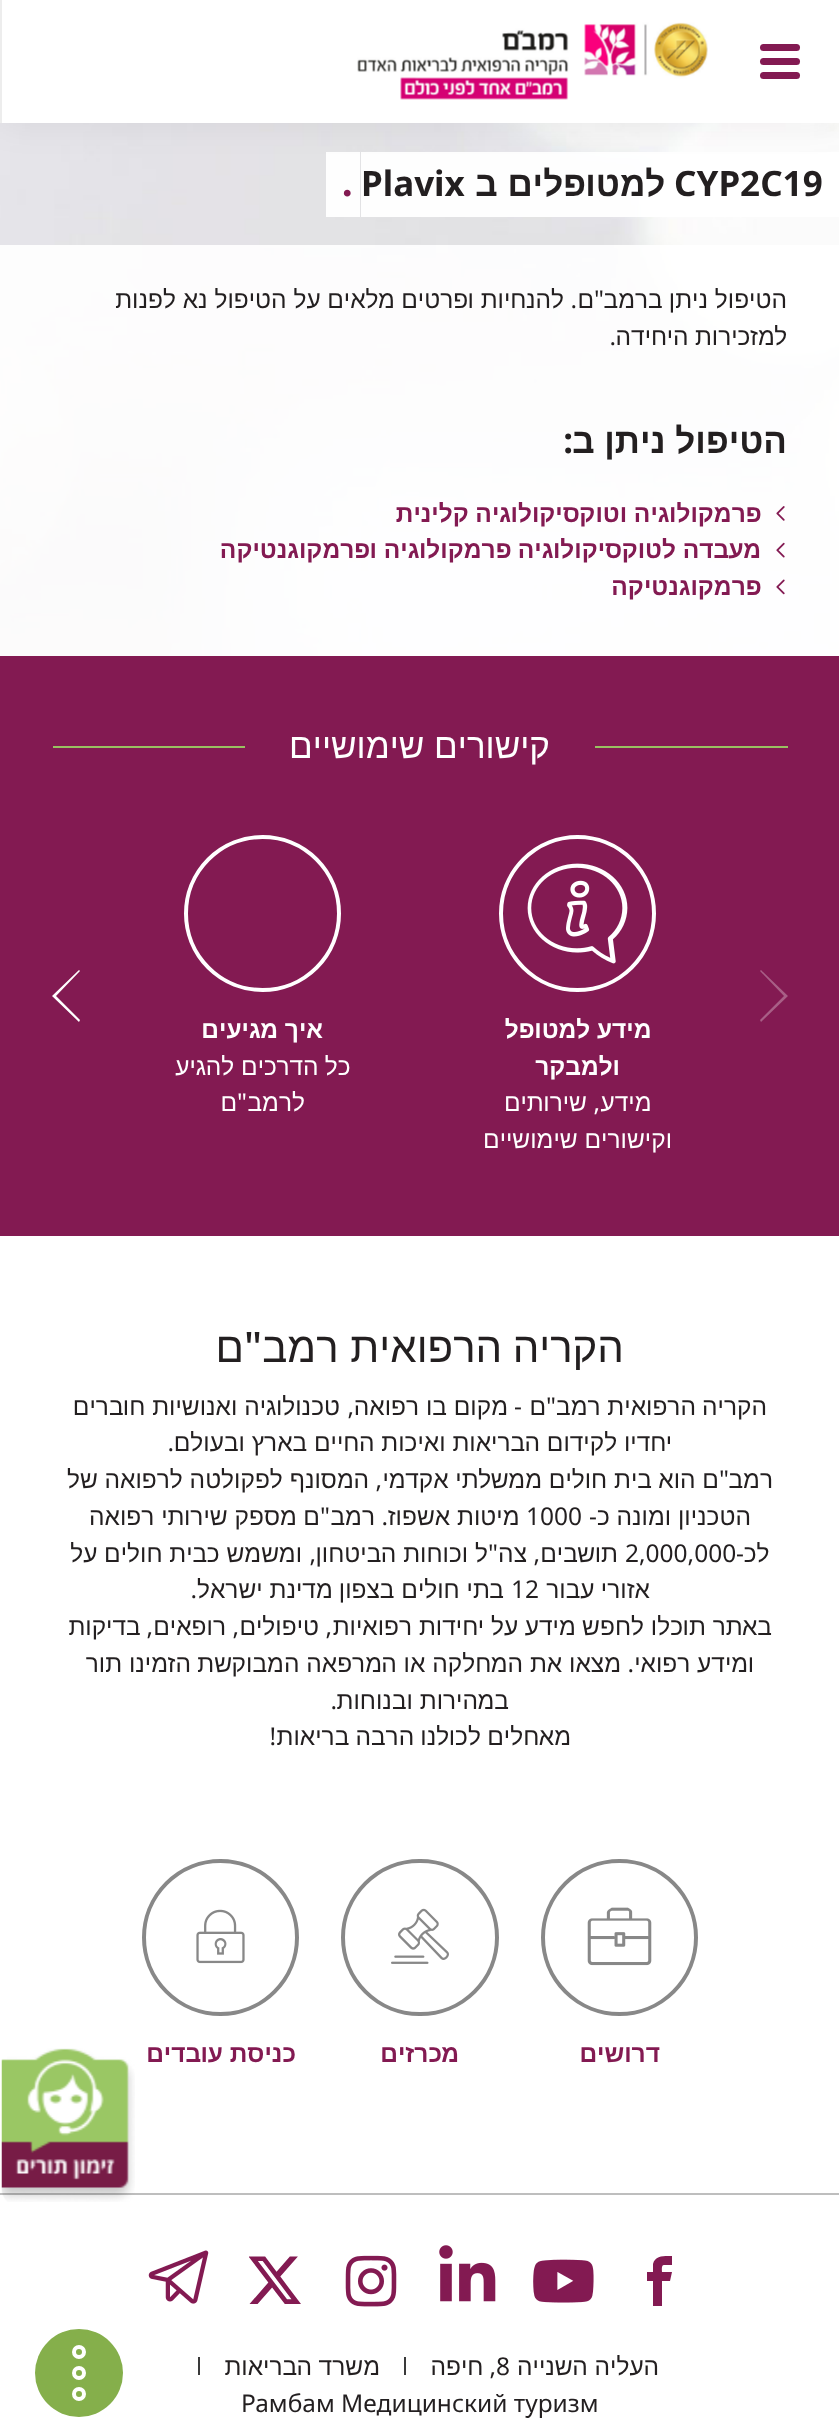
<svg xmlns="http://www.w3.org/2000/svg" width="839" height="2433">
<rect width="100%" height="100%" fill="#fff"/>
<image x="0" y="123" width="839" height="533" href="media/1.png"/>
<path d="M501 152h173v65h35v-65z" fill="#fffffff2"/>
<rect x="501" y="152" width="173" height="65" fill="#fffffff2"/>
<path d="M709 152h113v65h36v-65z" fill="#fff"/>
<rect x="709" y="152" width="113" height="65" fill="#fffffff2"/>
<path d="M326 152v65h34v-65h71z" fill="#fefefe"/>
<path d="M396 152h70v65h35v-65z" fill="#fffffff2"/>
<rect x="361" y="152" width="105" height="65" fill="#fffffff2"/>
<rect y="2" width="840" height="122" fill="#0000000f" filter="blur(17.5px)"/>
<rect x="2" width="837" height="123" fill="#fff"/>
<rect x="760" y="44" width="40" height="7" rx="3.5" fill="#831a52"/>
<rect x="760" y="58" width="40" height="7" rx="3.5" fill="#831a52"/>
<rect x="760" y="72" width="40" height="7" rx="3.5" fill="#831a52"/>
<rect width="2" height="123" fill="#ededed"/>
<image x="357" y="22" width="351" height="78" href="media/2.png"/>
<text x="674" y="196" style="font-family:Noto Sans;font-size:35px;font-weight:bold;fill:#231f20">CYP2C19</text>
<text x="665" y="196" style="font-family:Noto Sans Hebrew;font-size:35px;font-weight:bold;direction:rtl;fill:#231f20">למטופלים ב</text>
<text x="361" y="196" style="font-family:Noto Sans;font-size:35px;font-weight:bold;fill:#231f20">Plavix</text>
<text x="342" y="196" style="font-family:Liberation Serif;font-size:42px;font-weight:bold;fill:#831a52">.</text>
<rect y="245" width="839" height="411" fill="#ffffffe6"/>
<text x="787" y="308" style="font-family:Noto Sans Hebrew;font-size:24.5px;direction:rtl;fill:#231f20">הטיפול ניתן ברמב</text>
<text x="604" y="308" style="font-family:Noto Sans;font-size:24.5px;direction:rtl;fill:#231f20">"</text>
<text x="594" y="308" style="font-family:Noto Sans Hebrew;font-size:24.5px;direction:rtl;fill:#231f20">ם</text>
<text x="577" y="308" style="font-family:Noto Sans;font-size:24.5px;direction:rtl;fill:#231f20">.</text>
<text x="564" y="308" style="font-family:Noto Sans Hebrew;font-size:24.5px;direction:rtl;fill:#231f20">להנחיות ופרטים מלאים על הטיפול נא לפנות</text>
<text x="787" y="345" style="font-family:Noto Sans Hebrew;font-size:24.5px;direction:rtl;fill:#231f20">למזכירות היחידה</text>
<text x="616" y="345" style="font-family:Noto Sans;font-size:24.5px;direction:rtl;fill:#231f20">.</text>
<text x="787" y="453" style="font-family:Noto Sans Hebrew;font-size:35px;font-weight:bold;direction:rtl;fill:#231f20">הטיפול ניתן ב</text>
<text x="573" y="453" style="font-family:Noto Sans;font-size:35px;font-weight:bold;direction:rtl;fill:#231f20">:</text>
<image x="776" y="506" width="9" height="15" href="media/3.png"/>
<text x="761" y="522" style="font-family:Noto Sans Hebrew;font-size:24.5px;font-weight:bold;direction:rtl;fill:#831a52">פרמקולוגיה וטוקסיקולוגיה קלינית</text>
<image x="776" y="542" width="9" height="16" href="media/4.png"/>
<text x="761" y="558" style="font-family:Noto Sans Hebrew;font-size:24.5px;font-weight:bold;direction:rtl;fill:#831a52">מעבדה לטוקסיקולוגיה פרמקולוגיה ופרמקוגנטיקה</text>
<image x="776" y="579" width="9" height="16" href="media/5.png"/>
<text x="761" y="595" style="font-family:Noto Sans Hebrew;font-size:24.5px;font-weight:bold;direction:rtl;fill:#831a52">פרמקוגנטיקה</text>
<rect y="656" width="839" height="580" fill="#831a52"/>
<rect x="53" y="746" width="735" height="2" fill="#99c161"/>
<rect x="245" y="746" width="350" height="2" fill="#831a52"/>
<text x="550" y="758" style="font-family:Noto Sans Hebrew;font-size:35px;direction:rtl;fill:#fff">קישורים שימושיים</text>
<path d="M788 996l-27 26l-1-2l24-24l-24-25l1-1z" fill="#a85f86"/>
<path d="M52 996l27-26l1 1l-24 25l24 24l-1 2z" fill="#fff"/>
<circle cx="577.5" cy="913.5" r="76.5" fill="none" stroke="#fff" stroke-width="4"/>
<image x="527" y="863" width="101" height="101" href="media/6.png"/>
<text x="651" y="1038" style="font-family:Noto Sans Hebrew;font-size:24.5px;font-weight:bold;direction:rtl;fill:#fff">מידע למטופל</text>
<text x="620" y="1075" style="font-family:Noto Sans Hebrew;font-size:24.5px;font-weight:bold;direction:rtl;fill:#fff">ולמבקר</text>
<text x="651" y="1111" style="font-family:Noto Sans Hebrew;font-size:24.5px;direction:rtl;fill:#fff">מידע</text>
<text x="600" y="1111" style="font-family:Noto Sans;font-size:24.5px;direction:rtl;fill:#fff">,</text>
<text x="587" y="1111" style="font-family:Noto Sans Hebrew;font-size:24.5px;direction:rtl;fill:#fff">שירותים</text>
<text x="672" y="1148" style="font-family:Noto Sans Hebrew;font-size:24.5px;direction:rtl;fill:#fff">וקישורים שימושיים</text>
<circle cx="262.5" cy="913.5" r="76.5" fill="none" stroke="#fff" stroke-width="4"/>
<text x="323" y="1038" style="font-family:Noto Sans Hebrew;font-size:24.5px;font-weight:bold;direction:rtl;fill:#fff">איך מגיעים</text>
<text x="350" y="1075" style="font-family:Noto Sans Hebrew;font-size:24.5px;direction:rtl;fill:#fff">כל הדרכים להגיע</text>
<text x="305" y="1111" style="font-family:Noto Sans Hebrew;font-size:24.5px;direction:rtl;fill:#fff">לרמב</text>
<text x="247" y="1111" style="font-family:Noto Sans;font-size:24.5px;direction:rtl;fill:#fff">"</text>
<text x="237" y="1111" style="font-family:Noto Sans Hebrew;font-size:24.5px;direction:rtl;fill:#fff">ם</text>
<text x="624" y="1362" style="font-family:Noto Sans Hebrew;font-size:42px;direction:rtl;fill:#231f20">הקריה הרפואית רמב</text>
<text x="262" y="1362" style="font-family:Noto Sans;font-size:42px;font-weight:500;direction:rtl;fill:#231f20">"</text>
<text x="244" y="1362" style="font-family:Noto Sans Hebrew;font-size:42px;direction:rtl;fill:#231f20">ם</text>
<text x="767" y="1415" style="font-family:Noto Sans Hebrew;font-size:24.5px;direction:rtl;fill:#231f20">הקריה הרפואית רמב</text>
<text x="556" y="1415" style="font-family:Noto Sans;font-size:24.5px;direction:rtl;fill:#231f20">"</text>
<text x="546" y="1415" style="font-family:Noto Sans Hebrew;font-size:24.5px;direction:rtl;fill:#231f20">ם</text>
<text x="522" y="1415" style="font-family:Noto Sans;font-size:24.5px;direction:rtl;fill:#231f20">-</text>
<text x="508" y="1415" style="font-family:Noto Sans Hebrew;font-size:24.5px;direction:rtl;fill:#231f20">מקום בו רפואה</text>
<text x="340" y="1415" style="font-family:Noto Sans Hebrew;font-size:24.5px;direction:rtl;fill:#231f20">טכנולוגיה ואנושיות חוברים</text>
<text x="354" y="1415" style="font-family:Noto Sans;font-size:24.5px;direction:rtl;fill:#231f20">,</text>
<text x="672" y="1451" style="font-family:Noto Sans Hebrew;font-size:24.5px;direction:rtl;fill:#231f20">יחדיו לקידום הבריאות ואיכות החיים בארץ ובעולם</text>
<text x="174" y="1451" style="font-family:Noto Sans;font-size:24.5px;direction:rtl;fill:#231f20">.</text>
<text x="773" y="1488" style="font-family:Noto Sans Hebrew;font-size:24.5px;direction:rtl;fill:#231f20">רמב</text>
<text x="729" y="1488" style="font-family:Noto Sans;font-size:24.5px;direction:rtl;fill:#231f20">"</text>
<text x="719" y="1488" style="font-family:Noto Sans Hebrew;font-size:24.5px;direction:rtl;fill:#231f20">ם הוא בית חולים ממשלתי אקדמי</text>
<text x="382" y="1488" style="font-family:Noto Sans;font-size:24.5px;direction:rtl;fill:#231f20">,</text>
<text x="369" y="1488" style="font-family:Noto Sans Hebrew;font-size:24.5px;direction:rtl;fill:#231f20">המסונף לפקולטה לרפואה של</text>
<text x="751" y="1525" style="font-family:Noto Sans Hebrew;font-size:24.5px;direction:rtl;fill:#231f20">הטכניון ומונה כ</text>
<text x="597" y="1525" style="font-family:Noto Sans;font-size:24.5px;direction:rtl;fill:#231f20">-</text>
<text x="526" y="1525" style="font-family:Noto Sans;font-size:24.5px;fill:#231f20">1000</text>
<text x="519" y="1525" style="font-family:Noto Sans Hebrew;font-size:24.5px;direction:rtl;fill:#231f20">מיטות אשפוז</text>
<text x="375" y="1525" style="font-family:Noto Sans Hebrew;font-size:24.5px;direction:rtl;fill:#231f20">רמב</text>
<text x="330" y="1525" style="font-family:Noto Sans;font-size:24.5px;direction:rtl;fill:#231f20">"</text>
<text x="320" y="1525" style="font-family:Noto Sans Hebrew;font-size:24.5px;direction:rtl;fill:#231f20">ם מספק שירותי רפואה</text>
<text x="388" y="1525" style="font-family:Noto Sans;font-size:24.5px;direction:rtl;fill:#231f20">.</text>
<text x="769" y="1562" style="font-family:Noto Sans Hebrew;font-size:24.5px;direction:rtl;fill:#231f20">לכ</text>
<text x="744" y="1562" style="font-family:Noto Sans;font-size:24.5px;direction:rtl;fill:#231f20">-</text>
<text x="625" y="1562" style="font-family:Noto Sans;font-size:24.5px;fill:#231f20">2,000,000</text>
<text x="618" y="1562" style="font-family:Noto Sans Hebrew;font-size:24.5px;direction:rtl;fill:#231f20">תושבים</text>
<text x="527" y="1562" style="font-family:Noto Sans Hebrew;font-size:24.5px;direction:rtl;fill:#231f20">צה</text>
<text x="498" y="1562" style="font-family:Noto Sans;font-size:24.5px;direction:rtl;fill:#231f20">"</text>
<text x="488" y="1562" style="font-family:Noto Sans Hebrew;font-size:24.5px;direction:rtl;fill:#231f20">ל וכוחות הביטחון</text>
<text x="302" y="1562" style="font-family:Noto Sans Hebrew;font-size:24.5px;direction:rtl;fill:#231f20">ומשמש כבית חולים על</text>
<text x="540" y="1562" style="font-family:Noto Sans;font-size:24.5px;direction:rtl;fill:#231f20">,</text>
<text x="316" y="1562" style="font-family:Noto Sans;font-size:24.5px;direction:rtl;fill:#231f20">,</text>
<text x="650" y="1598" style="font-family:Noto Sans Hebrew;font-size:24.5px;direction:rtl;fill:#231f20">אזורי עבור</text>
<text x="511" y="1598" style="font-family:Noto Sans;font-size:24.5px;fill:#231f20">12</text>
<text x="504" y="1598" style="font-family:Noto Sans Hebrew;font-size:24.5px;direction:rtl;fill:#231f20">בתי חולים בצפון מדינת ישראל</text>
<text x="197" y="1598" style="font-family:Noto Sans;font-size:24.5px;direction:rtl;fill:#231f20">.</text>
<text x="772" y="1635" style="font-family:Noto Sans Hebrew;font-size:24.5px;direction:rtl;fill:#231f20">באתר תוכלו לחפש מידע על יחידות רפואיות</text>
<text x="332" y="1635" style="font-family:Noto Sans;font-size:24.5px;direction:rtl;fill:#231f20">,</text>
<text x="319" y="1635" style="font-family:Noto Sans Hebrew;font-size:24.5px;direction:rtl;fill:#231f20">טיפולים</text>
<text x="239" y="1635" style="font-family:Noto Sans;font-size:24.5px;direction:rtl;fill:#231f20">,</text>
<text x="226" y="1635" style="font-family:Noto Sans Hebrew;font-size:24.5px;direction:rtl;fill:#231f20">רופאים</text>
<text x="153" y="1635" style="font-family:Noto Sans;font-size:24.5px;direction:rtl;fill:#231f20">,</text>
<text x="140" y="1635" style="font-family:Noto Sans Hebrew;font-size:24.5px;direction:rtl;fill:#231f20">בדיקות</text>
<text x="754" y="1672" style="font-family:Noto Sans Hebrew;font-size:24.5px;direction:rtl;fill:#231f20">ומידע רפואי</text>
<text x="634" y="1672" style="font-family:Noto Sans;font-size:24.5px;direction:rtl;fill:#231f20">.</text>
<text x="621" y="1672" style="font-family:Noto Sans Hebrew;font-size:24.5px;direction:rtl;fill:#231f20">מצאו את המחלקה או המרפאה המבוקשת הזמינו תור</text>
<text x="509" y="1709" style="font-family:Noto Sans Hebrew;font-size:24.5px;direction:rtl;fill:#231f20">במהירות ובנוחות</text>
<text x="337" y="1709" style="font-family:Noto Sans;font-size:24.5px;direction:rtl;fill:#231f20">.</text>
<text x="571" y="1745" style="font-family:Noto Sans Hebrew;font-size:24.5px;direction:rtl;fill:#231f20">מאחלים לכולנו הרבה בריאות</text>
<text x="276" y="1745" style="font-family:Noto Sans;font-size:24.5px;direction:rtl;fill:#231f20">!</text>
<circle cx="619.5" cy="1937.5" r="76.5" fill="none" stroke="#888" stroke-width="4"/>
<image x="587" y="1907" width="65" height="59" href="media/7.png"/>
<text x="660" y="2062" style="font-family:Noto Sans Hebrew;font-size:24.5px;font-weight:bold;direction:rtl;fill:#831a52">דרושים</text>
<rect x="343" y="1861" width="154" height="153" rx="76.5" fill="none" stroke="#888" stroke-width="4"/>
<image x="391" y="1908" width="58" height="56" href="media/8.png"/>
<text x="459" y="2062" style="font-family:Noto Sans Hebrew;font-size:24.5px;font-weight:bold;direction:rtl;fill:#831a52">מכרזים</text>
<circle cx="220.5" cy="1937.5" r="76.5" fill="none" stroke="#888" stroke-width="4"/>
<image x="196" y="1909" width="49" height="55" href="media/9.png"/>
<text x="296" y="2062" style="font-family:Noto Sans Hebrew;font-size:24.5px;font-weight:bold;direction:rtl;fill:#831a52">כניסת עובדים</text>
<rect y="2193" width="839" height="2" fill="#bebebe"/>
<path d="M664 2265h8v-9c-7 0-17-1-19 8v8h-6v9h6v25h9v-25h8l2-9h-10c0-1-1-7 2-7z" fill="#831a52"/>
<image x="533" y="2259" width="61" height="44" href="media/10.png"/>
<image x="439" y="2245" width="57" height="57" href="media/11.png"/>
<image x="345" y="2255" width="52" height="52" href="media/12.png"/>
<image x="249" y="2256" width="52" height="48" href="media/13.png"/>
<image x="148" y="2250" width="61" height="54" href="media/14.png"/>
<text x="659" y="2375" style="font-family:Noto Sans Hebrew;font-size:24.5px;direction:rtl;fill:#231f20">העליה השנייה</text>
<text x="496" y="2375" style="font-family:Noto Sans;font-size:24.5px;fill:#231f20">8</text>
<text x="496" y="2375" style="font-family:Noto Sans;font-size:24.5px;direction:rtl;fill:#231f20">,</text>
<text x="483" y="2375" style="font-family:Noto Sans Hebrew;font-size:24.5px;direction:rtl;fill:#231f20">חיפה</text>
<rect x="404" y="2357" width="2" height="18" fill="#3a3a3a"/>
<text x="380" y="2375" style="font-family:Noto Sans Hebrew;font-size:24.5px;direction:rtl;fill:#231f20">משרד</text>
<text x="312" y="2375" style="font-family:Noto Sans Hebrew;font-size:24.5px;direction:rtl;fill:#231f20">הבריאות</text>
<rect x="198" y="2357" width="2" height="18" fill="#3a3a3a"/>
<text x="241" y="2412" style="font-family:Noto Sans;font-size:24.5px;fill:#231f20">Рамбам Медицинский туризм</text>
<circle cx="79" cy="2373" r="44" fill="#85af4b"/>
<circle cx="79" cy="2373" r="5" fill="none" stroke="#fff" stroke-width="4"/>
<circle cx="79" cy="2352" r="5" fill="none" stroke="#fff" stroke-width="4"/>
<circle cx="79" cy="2394" r="5" fill="none" stroke="#fff" stroke-width="4"/>
<image x="1" y="2048" width="134" height="154" href="media/15.png"/>
</svg>
